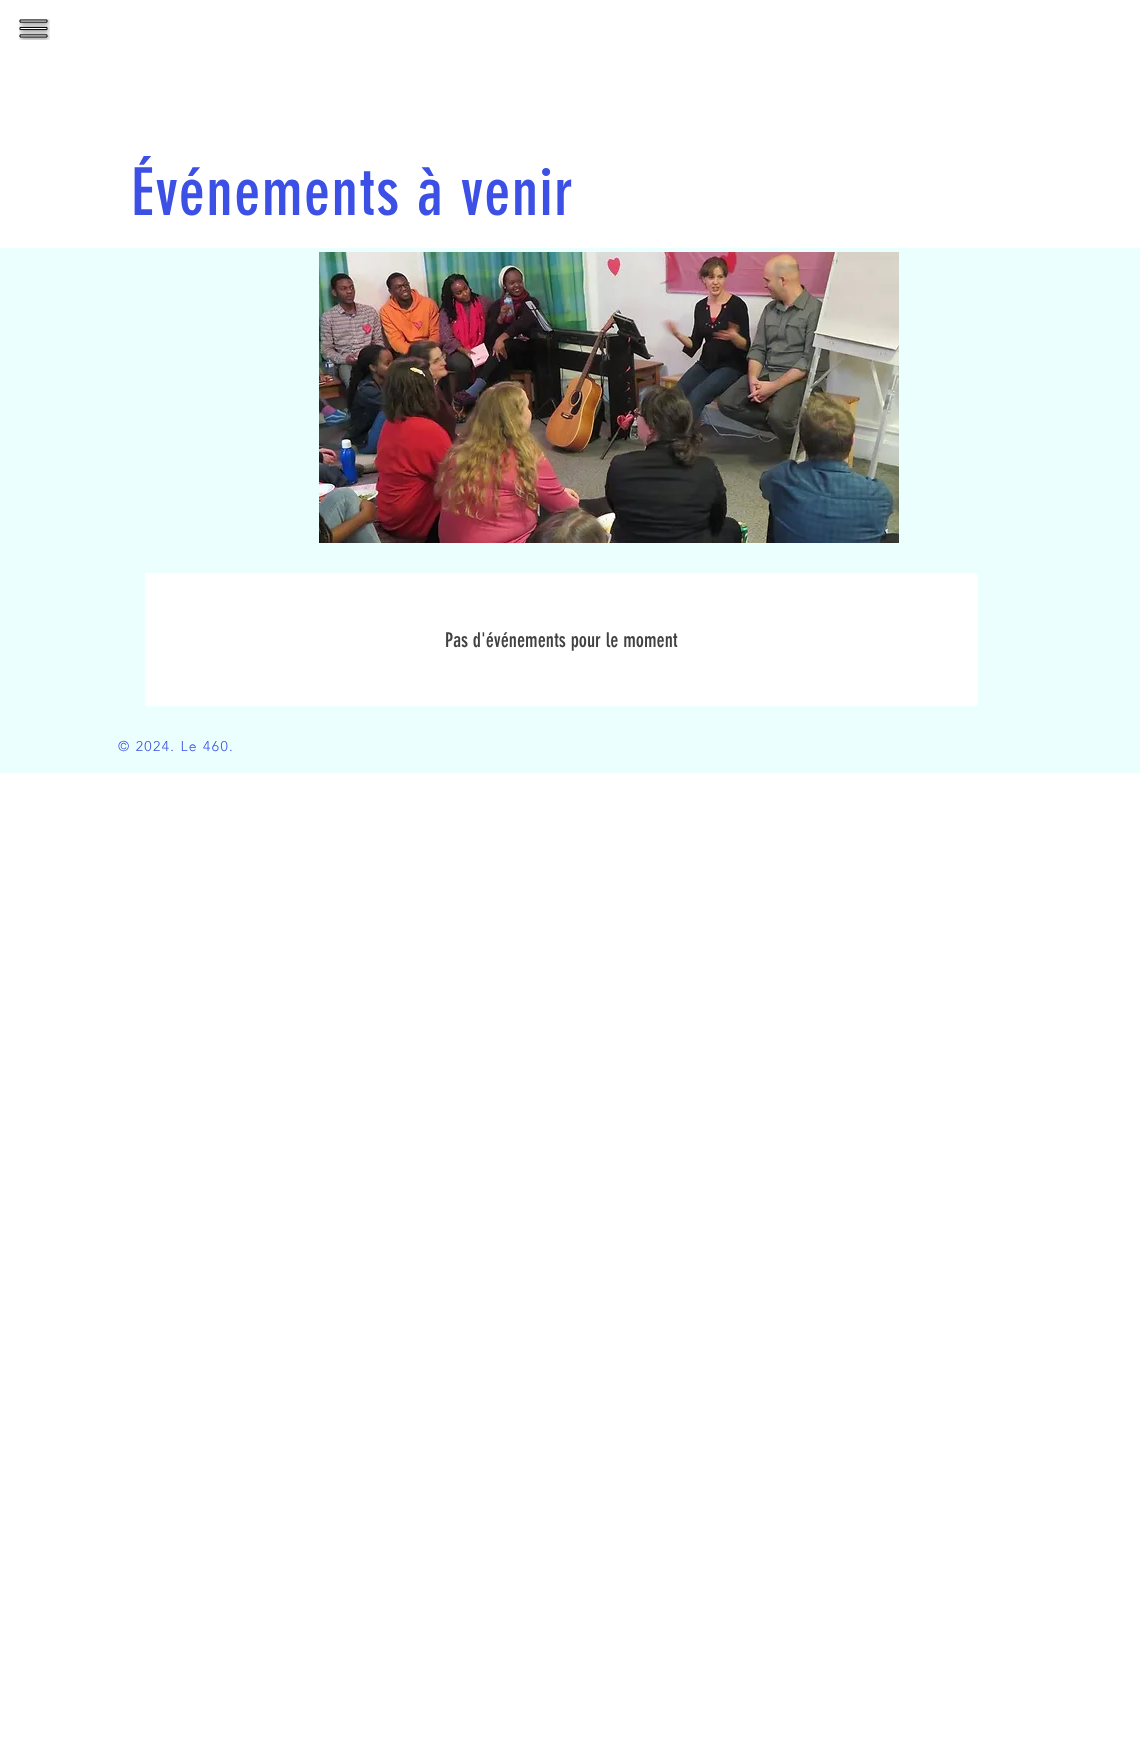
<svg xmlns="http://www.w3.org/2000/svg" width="1140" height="1758">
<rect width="100%" height="100%" fill="#fff"/>
<image x="19" y="19" width="31" height="21" href="media/1.png"/>
<text x="131" y="215" style="font-family:'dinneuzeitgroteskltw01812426';font-size:65px;letter-spacing:1.25px;fill:#3c50e6">Événements à venir</text>
<rect y="248" width="1140" height="525" fill="#ebfffe"/>
<image x="319" y="252" width="580" height="291" href="media/2.png"/>
<rect x="145" y="573" width="833" height="133" fill="#fff"/>
<text x="445" y="647" style="font-family:'dinneuzeitgroteskltw01812426';font-size:20px;fill:#414141">Pas d'événements pour le moment</text>
<text x="118" y="751" style="font-family:'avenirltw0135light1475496';font-size:14px;font-weight:300;letter-spacing:1.4px;fill:#3c50e6">© 2024. Le 460.</text>
</svg>
